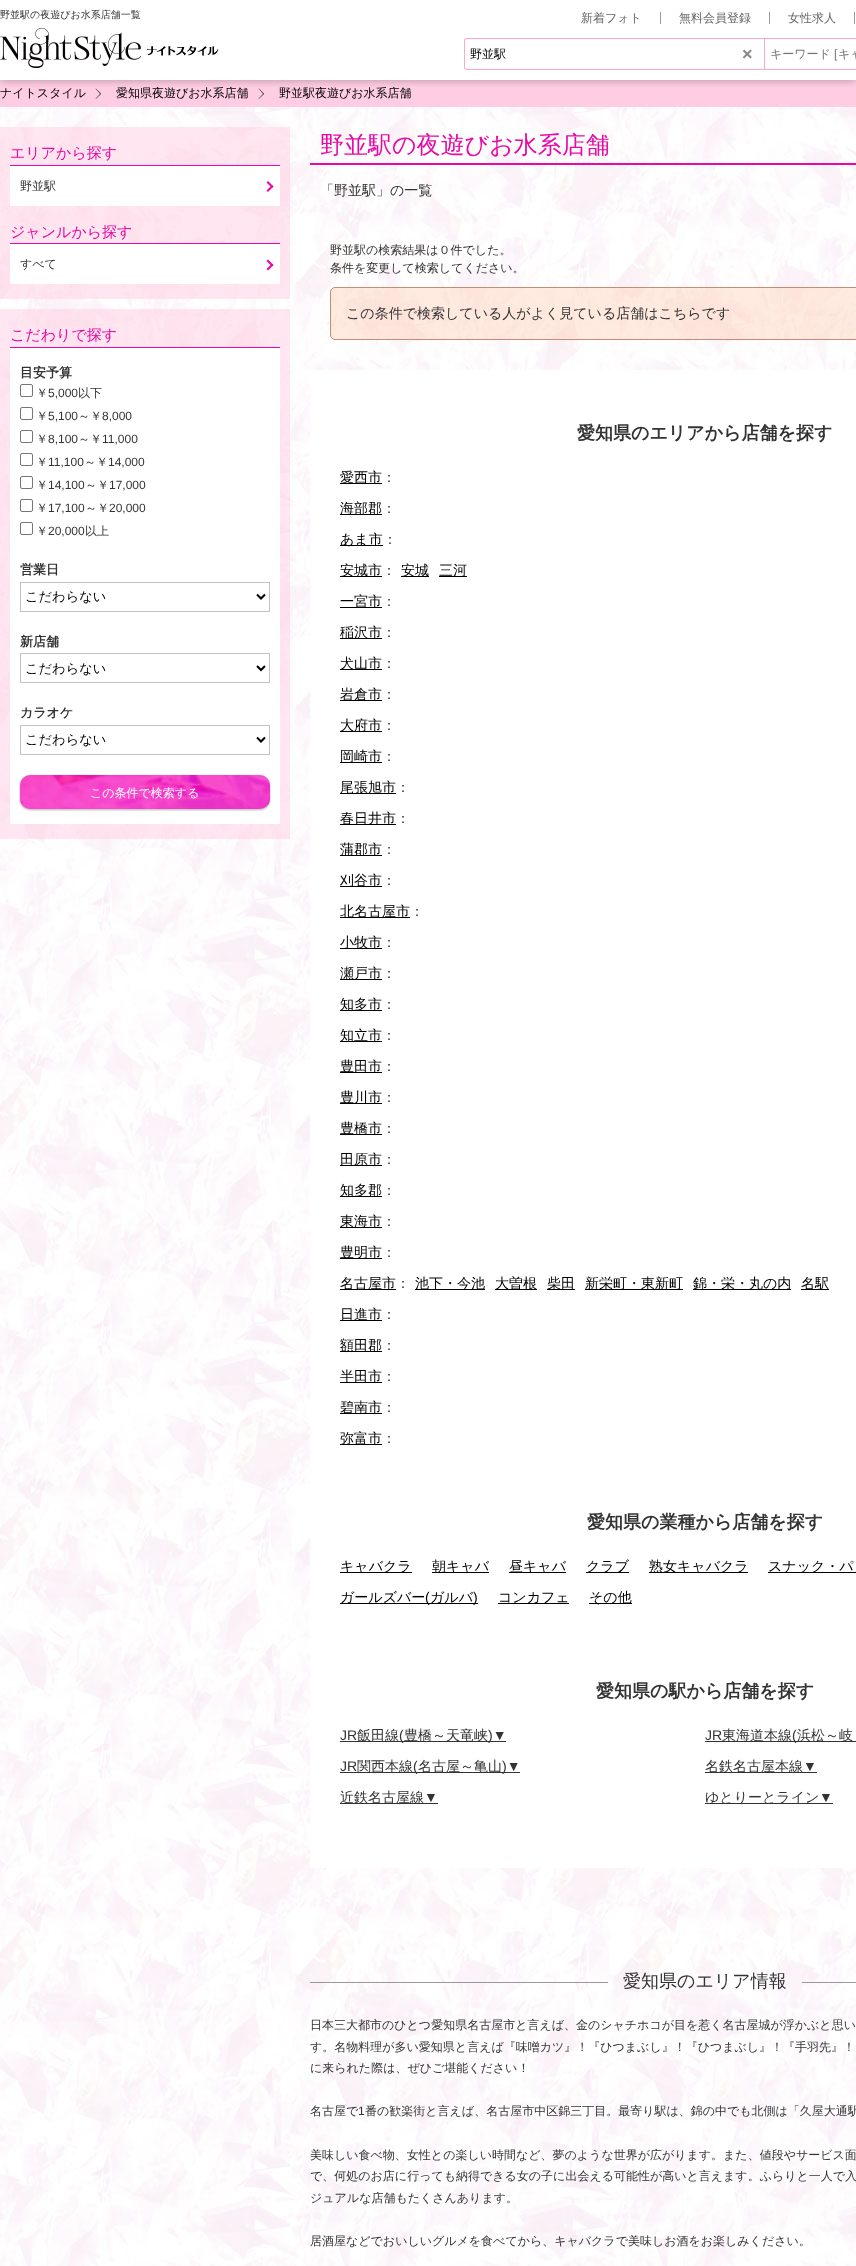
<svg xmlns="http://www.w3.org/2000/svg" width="856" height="2266">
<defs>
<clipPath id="clip1"><rect x="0" y="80" width="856" height="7"/></clipPath>
</defs>
<rect width="100%" height="100%" fill="#fff"/>
<image x="0" y="0" width="856" height="2266" href="media/1.png"/>
<rect y="80" width="856" height="27" fill="#ffcde3"/>
<image x="95" y="88" width="6" height="11" href="media/3.png"/>
<image x="258" y="88" width="6" height="11" href="media/3.png"/>
<g clip-path="url(#clip1)">
<rect width="856" height="80" fill="#0000004d" filter="blur(5px)"/>
</g>
<rect width="856" height="80" fill="#fffffff2"/>
<text x="0" y="18" style="font-family:WenQuanYi Zen Hei;font-size:10px;font-weight:500;fill:#333">野並駅の夜遊びお水系店舗一覧</text>
<rect x="660" y="12" width="1" height="12" fill="#999"/>
<text x="581" y="22" style="font-family:WenQuanYi Zen Hei;font-size:12px;font-weight:500;fill:#666">新着フォト</text>
<rect x="769" y="12" width="1" height="12" fill="#999"/>
<text x="679" y="22" style="font-family:WenQuanYi Zen Hei;font-size:12px;font-weight:500;fill:#666">無料会員登録</text>
<rect x="854" y="12" width="1" height="12" fill="#999"/>
<text x="788" y="22" style="font-family:WenQuanYi Zen Hei;font-size:12px;font-weight:500;fill:#666">女性求人</text>
<image x="0" y="28" width="219" height="40" href="media/2.png"/>
<path d="M467 38h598v32h-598c-2 0-3-1-3-3v-26c0-2 1-3 3-3zm0 1h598v30h-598c-1 0-2-1-2-2v-26c0-1 1-2 2-2z" fill="#ffa6ce" fill-rule="evenodd"/>
<path d="M468 39h297v30h-297c-1.5 0-3-1.5-3-3v-24c0-1.5 1.5-3 3-3z" fill="#fff"/>
<rect x="764" y="39" width="1" height="30" fill="#ffa6ce"/>
<text x="470" y="58" style="font-family:WenQuanYi Zen Hei;font-size:12px;font-weight:500;fill:#000">野並駅</text>
<text x="742" y="60" style="font-family:Liberation Sans;font-size:18px;font-weight:bold;fill:#888">×</text>
<text x="770" y="58" style="font-family:WenQuanYi Zen Hei;font-size:12px;font-weight:500;fill:#757575">キーワード</text>
<text x="834" y="58" style="font-family:Liberation Sans;font-size:12px;fill:#757575">[</text>
<text x="838" y="58" style="font-family:WenQuanYi Zen Hei;font-size:12px;font-weight:500;fill:#757575">キャ</text>
<text x="0" y="97" style="font-family:WenQuanYi Zen Hei;font-size:12px;font-weight:500;fill:#000">ナイトスタイル</text>
<text x="116" y="97" style="font-family:WenQuanYi Zen Hei;font-size:12px;font-weight:500;fill:#000">愛知県夜遊びお水系店舗</text>
<text x="279" y="97" style="font-family:WenQuanYi Zen Hei;font-size:12px;font-weight:500;fill:#000">野並駅夜遊びお水系店舗</text>
<rect y="127" width="290" height="172" fill="#ffcde280"/>
<rect x="10" y="165" width="270" height="1" fill="#e50aa5"/>
<text x="10" y="158" style="font-family:WenQuanYi Zen Hei;font-size:15px;font-weight:500;fill:#e50aa5">エリアから探す</text>
<rect x="10" y="166" width="270" height="40" fill="#fff"/>
<text x="20" y="190" style="font-family:WenQuanYi Zen Hei;font-size:12px;font-weight:500;fill:#333">野並駅</text>
<path d="M268 181l5.5 5.5l-1.5 1.5l-5.5-5.5z" fill="#e50aa5"/>
<path d="M272 185l1.5 1.5l-5.5 5.5l-1.5-1.5z" fill="#e50aa5"/>
<rect x="10" y="243" width="270" height="1" fill="#e50aa5"/>
<text x="10" y="237" style="font-family:WenQuanYi Zen Hei;font-size:15px;font-weight:500;fill:#e50aa5">ジャンルから探す</text>
<rect x="10" y="244" width="270" height="40" fill="#fff"/>
<text x="20" y="268" style="font-family:WenQuanYi Zen Hei;font-size:12px;font-weight:500;fill:#333">すべて</text>
<path d="M268 259.5l5.5 5.5l-1.5 1.5l-5.5-5.5z" fill="#e50aa5"/>
<path d="M272 263.5l1.5 1.5l-5.5 5.5l-1.5-1.5z" fill="#e50aa5"/>
<rect y="309" width="290" height="530" fill="#ffcde280"/>
<rect x="10" y="347" width="270" height="1" fill="#e50aa5"/>
<text x="10" y="340" style="font-family:WenQuanYi Zen Hei;font-size:15px;font-weight:500;fill:#e50aa5">こだわりで探す</text>
<rect x="10" y="348" width="270" height="476" fill="#fff"/>
<text x="20" y="377" style="font-family:WenQuanYi Zen Hei;font-size:13px;font-weight:bold;fill:#333">目安予算</text>
<rect x="20.5" y="384.5" width="12" height="12" rx="1.5" fill="none" stroke="#767676"/>
<text x="36" y="397" style="font-family:WenQuanYi Zen Hei;font-size:12px;font-weight:500;fill:#333">￥</text>
<text x="48" y="397" style="font-family:Liberation Sans;font-size:12px;fill:#333">5,000</text>
<text x="78" y="397" style="font-family:WenQuanYi Zen Hei;font-size:12px;font-weight:500;fill:#333">以下</text>
<rect x="20.5" y="407.5" width="12" height="12" rx="1.5" fill="none" stroke="#767676"/>
<text x="36" y="420" style="font-family:WenQuanYi Zen Hei;font-size:12px;font-weight:500;fill:#333">￥</text>
<text x="48" y="420" style="font-family:Liberation Sans;font-size:12px;fill:#333">5,100</text>
<text x="78" y="420" style="font-family:WenQuanYi Zen Hei;font-size:12px;font-weight:500;fill:#333">～￥</text>
<text x="102" y="420" style="font-family:Liberation Sans;font-size:12px;fill:#333">8,000</text>
<rect x="20.5" y="430.5" width="12" height="12" rx="1.5" fill="none" stroke="#767676"/>
<text x="36" y="443" style="font-family:WenQuanYi Zen Hei;font-size:12px;font-weight:500;fill:#333">￥</text>
<text x="48" y="443" style="font-family:Liberation Sans;font-size:12px;fill:#333">8,100</text>
<text x="78" y="443" style="font-family:WenQuanYi Zen Hei;font-size:12px;font-weight:500;fill:#333">～￥</text>
<text x="102" y="443" style="font-family:Liberation Sans;font-size:12px;fill:#333">11,000</text>
<rect x="20.5" y="453.5" width="12" height="12" rx="1.5" fill="none" stroke="#767676"/>
<text x="36" y="466" style="font-family:WenQuanYi Zen Hei;font-size:12px;font-weight:500;fill:#333">￥</text>
<text x="48" y="466" style="font-family:Liberation Sans;font-size:12px;fill:#333">11,100</text>
<text x="84" y="466" style="font-family:WenQuanYi Zen Hei;font-size:12px;font-weight:500;fill:#333">～￥</text>
<text x="108" y="466" style="font-family:Liberation Sans;font-size:12px;fill:#333">14,000</text>
<rect x="20.5" y="476.5" width="12" height="12" rx="1.5" fill="none" stroke="#767676"/>
<text x="36" y="489" style="font-family:WenQuanYi Zen Hei;font-size:12px;font-weight:500;fill:#333">￥</text>
<text x="48" y="489" style="font-family:Liberation Sans;font-size:12px;fill:#333">14,100</text>
<text x="85" y="489" style="font-family:WenQuanYi Zen Hei;font-size:12px;font-weight:500;fill:#333">～￥</text>
<text x="109" y="489" style="font-family:Liberation Sans;font-size:12px;fill:#333">17,000</text>
<rect x="20.5" y="499.5" width="12" height="12" rx="1.5" fill="none" stroke="#767676"/>
<text x="36" y="512" style="font-family:WenQuanYi Zen Hei;font-size:12px;font-weight:500;fill:#333">￥</text>
<text x="48" y="512" style="font-family:Liberation Sans;font-size:12px;fill:#333">17,100</text>
<text x="85" y="512" style="font-family:WenQuanYi Zen Hei;font-size:12px;font-weight:500;fill:#333">～￥</text>
<text x="109" y="512" style="font-family:Liberation Sans;font-size:12px;fill:#333">20,000</text>
<rect x="20.5" y="522.5" width="12" height="12" rx="1.5" fill="none" stroke="#767676"/>
<text x="36" y="535" style="font-family:WenQuanYi Zen Hei;font-size:12px;font-weight:500;fill:#333">￥</text>
<text x="48" y="535" style="font-family:Liberation Sans;font-size:12px;fill:#333">20,000</text>
<text x="85" y="535" style="font-family:WenQuanYi Zen Hei;font-size:12px;font-weight:500;fill:#333">以上</text>
<text x="20" y="574" style="font-family:WenQuanYi Zen Hei;font-size:13px;font-weight:bold;fill:#333">営業日</text>
<rect x="20.5" y="582.5" width="249" height="29" fill="none" stroke="#c2c2c2"/>
<path d="M257 594.5l4 4l4-4" fill="none" stroke="#000" stroke-width="2"/>
<text x="25" y="601" style="font-family:WenQuanYi Zen Hei;font-size:13.25px;font-weight:500;fill:#000">こだわらない</text>
<text x="20" y="646" style="font-family:WenQuanYi Zen Hei;font-size:13px;font-weight:bold;fill:#333">新店舗</text>
<rect x="20.5" y="653.5" width="249" height="29" fill="none" stroke="#c2c2c2"/>
<path d="M257 666l4 4l4-4" fill="none" stroke="#000" stroke-width="2"/>
<text x="25" y="673" style="font-family:WenQuanYi Zen Hei;font-size:13.25px;font-weight:500;fill:#000">こだわらない</text>
<text x="20" y="717" style="font-family:WenQuanYi Zen Hei;font-size:13px;font-weight:bold;fill:#333">カラオケ</text>
<rect x="20.5" y="725.5" width="249" height="29" fill="none" stroke="#c2c2c2"/>
<path d="M257 737.5l4 4l4-4" fill="none" stroke="#000" stroke-width="2"/>
<text x="25" y="744" style="font-family:WenQuanYi Zen Hei;font-size:13.25px;font-weight:500;fill:#000">こだわらない</text>
<rect x="20" y="776" width="250" height="34" rx="10" fill="#0000004d" filter="blur(1px)"/>
<image x="20" y="775" width="250" height="34" href="media/4.png"/>
<text x="90" y="797" style="font-family:WenQuanYi Zen Hei;font-size:12px;font-weight:500;fill:#fff">この条件で検索する</text>
<rect x="310" y="163" width="546" height="2" fill="#e50aa5"/>
<text x="320" y="153" style="font-family:WenQuanYi Zen Hei;font-size:24px;font-weight:500;fill:#e50aa5">野並駅の夜遊びお水系店舗</text>
<text x="320" y="195" style="font-family:WenQuanYi Zen Hei;font-size:14px;font-weight:500;fill:#333">「野並駅」の一覧</text>
<text x="330" y="254" style="font-family:WenQuanYi Zen Hei;font-size:12px;font-weight:500;fill:#333">野並駅の検索結果は０件でした。</text>
<text x="330" y="272" style="font-family:WenQuanYi Zen Hei;font-size:12px;font-weight:500;fill:#333">条件を変更して検索してください。</text>
<rect x="330.5" y="287.5" width="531" height="52" rx="4.5" fill="#ffccae66" stroke="#c58c76"/>
<text x="346" y="318" style="font-family:WenQuanYi Zen Hei;font-size:14px;font-weight:500;fill:#333">この条件で検索している人がよく見ている店舗はこちらです</text>
<rect x="310" y="370" width="546" height="1498" fill="#fff"/>
<text x="577" y="439" style="font-family:WenQuanYi Zen Hei;font-size:18px;font-weight:bold;fill:#333">愛知県のエリアから店舗を探す</text>
<rect x="340" y="483" width="42" height="1" fill="#000"/>
<text x="340" y="482" style="font-family:WenQuanYi Zen Hei;font-size:14px;font-weight:500;fill:#000">愛西市</text>
<text x="382" y="482" style="font-family:WenQuanYi Zen Hei;font-size:14px;font-weight:500;fill:#333">：</text>
<rect x="340" y="514" width="42" height="1" fill="#000"/>
<text x="340" y="513" style="font-family:WenQuanYi Zen Hei;font-size:14px;font-weight:500;fill:#000">海部郡</text>
<text x="382" y="513" style="font-family:WenQuanYi Zen Hei;font-size:14px;font-weight:500;fill:#333">：</text>
<rect x="340" y="545" width="43" height="1" fill="#000"/>
<text x="340" y="544" style="font-family:WenQuanYi Zen Hei;font-size:14px;font-weight:500;fill:#000">あま市</text>
<text x="383" y="544" style="font-family:WenQuanYi Zen Hei;font-size:14px;font-weight:500;fill:#333">：</text>
<rect x="340" y="576" width="42" height="1" fill="#000"/>
<text x="340" y="575" style="font-family:WenQuanYi Zen Hei;font-size:14px;font-weight:500;fill:#000">安城市</text>
<text x="382" y="575" style="font-family:WenQuanYi Zen Hei;font-size:14px;font-weight:500;fill:#333">：</text>
<rect x="401" y="576" width="28" height="1" fill="#000"/>
<text x="401" y="575" style="font-family:WenQuanYi Zen Hei;font-size:14px;font-weight:500;fill:#000">安城</text>
<rect x="439" y="576" width="28" height="1" fill="#000"/>
<text x="439" y="575" style="font-family:WenQuanYi Zen Hei;font-size:14px;font-weight:500;fill:#000">三河</text>
<rect x="340" y="607" width="42" height="1" fill="#000"/>
<text x="340" y="606" style="font-family:WenQuanYi Zen Hei;font-size:14px;font-weight:500;fill:#000">一宮市</text>
<text x="382" y="606" style="font-family:WenQuanYi Zen Hei;font-size:14px;font-weight:500;fill:#333">：</text>
<rect x="340" y="638" width="42" height="1" fill="#000"/>
<text x="340" y="637" style="font-family:WenQuanYi Zen Hei;font-size:14px;font-weight:500;fill:#000">稲沢市</text>
<text x="382" y="637" style="font-family:WenQuanYi Zen Hei;font-size:14px;font-weight:500;fill:#333">：</text>
<rect x="340" y="669" width="42" height="1" fill="#000"/>
<text x="340" y="668" style="font-family:WenQuanYi Zen Hei;font-size:14px;font-weight:500;fill:#000">犬山市</text>
<text x="382" y="668" style="font-family:WenQuanYi Zen Hei;font-size:14px;font-weight:500;fill:#333">：</text>
<rect x="340" y="700" width="42" height="1" fill="#000"/>
<text x="340" y="699" style="font-family:WenQuanYi Zen Hei;font-size:14px;font-weight:500;fill:#000">岩倉市</text>
<text x="382" y="699" style="font-family:WenQuanYi Zen Hei;font-size:14px;font-weight:500;fill:#333">：</text>
<rect x="340" y="731" width="42" height="1" fill="#000"/>
<text x="340" y="730" style="font-family:WenQuanYi Zen Hei;font-size:14px;font-weight:500;fill:#000">大府市</text>
<text x="382" y="730" style="font-family:WenQuanYi Zen Hei;font-size:14px;font-weight:500;fill:#333">：</text>
<rect x="340" y="762" width="42" height="1" fill="#000"/>
<text x="340" y="761" style="font-family:WenQuanYi Zen Hei;font-size:14px;font-weight:500;fill:#000">岡崎市</text>
<text x="382" y="761" style="font-family:WenQuanYi Zen Hei;font-size:14px;font-weight:500;fill:#333">：</text>
<rect x="340" y="793" width="56" height="1" fill="#000"/>
<text x="340" y="792" style="font-family:WenQuanYi Zen Hei;font-size:14px;font-weight:500;fill:#000">尾張旭市</text>
<text x="396" y="792" style="font-family:WenQuanYi Zen Hei;font-size:14px;font-weight:500;fill:#333">：</text>
<rect x="340" y="824" width="56" height="1" fill="#000"/>
<text x="340" y="823" style="font-family:WenQuanYi Zen Hei;font-size:14px;font-weight:500;fill:#000">春日井市</text>
<text x="396" y="823" style="font-family:WenQuanYi Zen Hei;font-size:14px;font-weight:500;fill:#333">：</text>
<rect x="340" y="855" width="42" height="1" fill="#000"/>
<text x="340" y="854" style="font-family:WenQuanYi Zen Hei;font-size:14px;font-weight:500;fill:#000">蒲郡市</text>
<text x="382" y="854" style="font-family:WenQuanYi Zen Hei;font-size:14px;font-weight:500;fill:#333">：</text>
<rect x="340" y="886" width="42" height="1" fill="#000"/>
<text x="340" y="885" style="font-family:WenQuanYi Zen Hei;font-size:14px;font-weight:500;fill:#000">刈谷市</text>
<text x="382" y="885" style="font-family:WenQuanYi Zen Hei;font-size:14px;font-weight:500;fill:#333">：</text>
<rect x="340" y="917" width="70" height="1" fill="#000"/>
<text x="340" y="916" style="font-family:WenQuanYi Zen Hei;font-size:14px;font-weight:500;fill:#000">北名古屋市</text>
<text x="410" y="916" style="font-family:WenQuanYi Zen Hei;font-size:14px;font-weight:500;fill:#333">：</text>
<rect x="340" y="948" width="42" height="1" fill="#000"/>
<text x="340" y="947" style="font-family:WenQuanYi Zen Hei;font-size:14px;font-weight:500;fill:#000">小牧市</text>
<text x="382" y="947" style="font-family:WenQuanYi Zen Hei;font-size:14px;font-weight:500;fill:#333">：</text>
<rect x="340" y="979" width="42" height="1" fill="#000"/>
<text x="340" y="978" style="font-family:WenQuanYi Zen Hei;font-size:14px;font-weight:500;fill:#000">瀬戸市</text>
<text x="382" y="978" style="font-family:WenQuanYi Zen Hei;font-size:14px;font-weight:500;fill:#333">：</text>
<rect x="340" y="1010" width="42" height="1" fill="#000"/>
<text x="340" y="1009" style="font-family:WenQuanYi Zen Hei;font-size:14px;font-weight:500;fill:#000">知多市</text>
<text x="382" y="1009" style="font-family:WenQuanYi Zen Hei;font-size:14px;font-weight:500;fill:#333">：</text>
<rect x="340" y="1041" width="42" height="1" fill="#000"/>
<text x="340" y="1040" style="font-family:WenQuanYi Zen Hei;font-size:14px;font-weight:500;fill:#000">知立市</text>
<text x="382" y="1040" style="font-family:WenQuanYi Zen Hei;font-size:14px;font-weight:500;fill:#333">：</text>
<rect x="340" y="1072" width="42" height="1" fill="#000"/>
<text x="340" y="1071" style="font-family:WenQuanYi Zen Hei;font-size:14px;font-weight:500;fill:#000">豊田市</text>
<text x="382" y="1071" style="font-family:WenQuanYi Zen Hei;font-size:14px;font-weight:500;fill:#333">：</text>
<rect x="340" y="1103" width="42" height="1" fill="#000"/>
<text x="340" y="1102" style="font-family:WenQuanYi Zen Hei;font-size:14px;font-weight:500;fill:#000">豊川市</text>
<text x="382" y="1102" style="font-family:WenQuanYi Zen Hei;font-size:14px;font-weight:500;fill:#333">：</text>
<rect x="340" y="1134" width="42" height="1" fill="#000"/>
<text x="340" y="1133" style="font-family:WenQuanYi Zen Hei;font-size:14px;font-weight:500;fill:#000">豊橋市</text>
<text x="382" y="1133" style="font-family:WenQuanYi Zen Hei;font-size:14px;font-weight:500;fill:#333">：</text>
<rect x="340" y="1165" width="42" height="1" fill="#000"/>
<text x="340" y="1164" style="font-family:WenQuanYi Zen Hei;font-size:14px;font-weight:500;fill:#000">田原市</text>
<text x="382" y="1164" style="font-family:WenQuanYi Zen Hei;font-size:14px;font-weight:500;fill:#333">：</text>
<rect x="340" y="1196" width="42" height="1" fill="#000"/>
<text x="340" y="1195" style="font-family:WenQuanYi Zen Hei;font-size:14px;font-weight:500;fill:#000">知多郡</text>
<text x="382" y="1195" style="font-family:WenQuanYi Zen Hei;font-size:14px;font-weight:500;fill:#333">：</text>
<rect x="340" y="1227" width="42" height="1" fill="#000"/>
<text x="340" y="1226" style="font-family:WenQuanYi Zen Hei;font-size:14px;font-weight:500;fill:#000">東海市</text>
<text x="382" y="1226" style="font-family:WenQuanYi Zen Hei;font-size:14px;font-weight:500;fill:#333">：</text>
<rect x="340" y="1258" width="42" height="1" fill="#000"/>
<text x="340" y="1257" style="font-family:WenQuanYi Zen Hei;font-size:14px;font-weight:500;fill:#000">豊明市</text>
<text x="382" y="1257" style="font-family:WenQuanYi Zen Hei;font-size:14px;font-weight:500;fill:#333">：</text>
<rect x="340" y="1289" width="56" height="1" fill="#000"/>
<text x="340" y="1288" style="font-family:WenQuanYi Zen Hei;font-size:14px;font-weight:500;fill:#000">名古屋市</text>
<text x="396" y="1288" style="font-family:WenQuanYi Zen Hei;font-size:14px;font-weight:500;fill:#333">：</text>
<rect x="415" y="1289" width="70" height="1" fill="#000"/>
<text x="415" y="1288" style="font-family:WenQuanYi Zen Hei;font-size:14px;font-weight:500;fill:#000">池下・今池</text>
<rect x="495" y="1289" width="42" height="1" fill="#000"/>
<text x="495" y="1288" style="font-family:WenQuanYi Zen Hei;font-size:14px;font-weight:500;fill:#000">大曽根</text>
<rect x="547" y="1289" width="28" height="1" fill="#000"/>
<text x="547" y="1288" style="font-family:WenQuanYi Zen Hei;font-size:14px;font-weight:500;fill:#000">柴田</text>
<rect x="585" y="1289" width="98" height="1" fill="#000"/>
<text x="585" y="1288" style="font-family:WenQuanYi Zen Hei;font-size:14px;font-weight:500;fill:#000">新栄町・東新町</text>
<rect x="693" y="1289" width="98" height="1" fill="#000"/>
<text x="693" y="1288" style="font-family:WenQuanYi Zen Hei;font-size:14px;font-weight:500;fill:#000">錦・栄・丸の内</text>
<rect x="801" y="1289" width="28" height="1" fill="#000"/>
<text x="801" y="1288" style="font-family:WenQuanYi Zen Hei;font-size:14px;font-weight:500;fill:#000">名駅</text>
<rect x="340" y="1320" width="42" height="1" fill="#000"/>
<text x="340" y="1319" style="font-family:WenQuanYi Zen Hei;font-size:14px;font-weight:500;fill:#000">日進市</text>
<text x="382" y="1319" style="font-family:WenQuanYi Zen Hei;font-size:14px;font-weight:500;fill:#333">：</text>
<rect x="340" y="1351" width="42" height="1" fill="#000"/>
<text x="340" y="1350" style="font-family:WenQuanYi Zen Hei;font-size:14px;font-weight:500;fill:#000">額田郡</text>
<text x="382" y="1350" style="font-family:WenQuanYi Zen Hei;font-size:14px;font-weight:500;fill:#333">：</text>
<rect x="340" y="1382" width="42" height="1" fill="#000"/>
<text x="340" y="1381" style="font-family:WenQuanYi Zen Hei;font-size:14px;font-weight:500;fill:#000">半田市</text>
<text x="382" y="1381" style="font-family:WenQuanYi Zen Hei;font-size:14px;font-weight:500;fill:#333">：</text>
<rect x="340" y="1413" width="42" height="1" fill="#000"/>
<text x="340" y="1412" style="font-family:WenQuanYi Zen Hei;font-size:14px;font-weight:500;fill:#000">碧南市</text>
<text x="382" y="1412" style="font-family:WenQuanYi Zen Hei;font-size:14px;font-weight:500;fill:#333">：</text>
<rect x="340" y="1444" width="42" height="1" fill="#000"/>
<text x="340" y="1443" style="font-family:WenQuanYi Zen Hei;font-size:14px;font-weight:500;fill:#000">弥富市</text>
<text x="382" y="1443" style="font-family:WenQuanYi Zen Hei;font-size:14px;font-weight:500;fill:#333">：</text>
<text x="587" y="1528" style="font-family:WenQuanYi Zen Hei;font-size:18px;font-weight:bold;fill:#333">愛知県の業種から店舗を探す</text>
<rect x="340" y="1572" width="72" height="1" fill="#000"/>
<text x="340" y="1571" style="font-family:WenQuanYi Zen Hei;font-size:14px;font-weight:500;fill:#000">キャバクラ</text>
<rect x="432" y="1572" width="57" height="1" fill="#000"/>
<text x="432" y="1571" style="font-family:WenQuanYi Zen Hei;font-size:14px;font-weight:500;fill:#000">朝キャバ</text>
<rect x="509" y="1572" width="57" height="1" fill="#000"/>
<text x="509" y="1571" style="font-family:WenQuanYi Zen Hei;font-size:14px;font-weight:500;fill:#000">昼キャバ</text>
<rect x="586" y="1572" width="43" height="1" fill="#000"/>
<text x="586" y="1571" style="font-family:WenQuanYi Zen Hei;font-size:14px;font-weight:500;fill:#000">クラブ</text>
<rect x="649" y="1572" width="99" height="1" fill="#000"/>
<text x="649" y="1571" style="font-family:WenQuanYi Zen Hei;font-size:14px;font-weight:500;fill:#000">熟女キャバクラ</text>
<rect x="768" y="1572" width="88" height="1" fill="#000"/>
<text x="768" y="1571" style="font-family:WenQuanYi Zen Hei;font-size:14px;font-weight:500;fill:#000">スナック・パ</text>
<rect x="340" y="1603" width="138" height="1" fill="#000"/>
<text x="340" y="1602" style="font-family:WenQuanYi Zen Hei;font-size:14px;font-weight:500;fill:#000">ガールズバー</text>
<text x="425" y="1602" style="font-family:Liberation Sans;font-size:14px;fill:#000">(</text>
<text x="430" y="1602" style="font-family:WenQuanYi Zen Hei;font-size:14px;font-weight:500;fill:#000">ガルバ</text>
<text x="473" y="1602" style="font-family:Liberation Sans;font-size:14px;fill:#000">)</text>
<rect x="498" y="1603" width="71" height="1" fill="#000"/>
<text x="498" y="1602" style="font-family:WenQuanYi Zen Hei;font-size:14px;font-weight:500;fill:#000">コンカフェ</text>
<rect x="589" y="1603" width="43" height="1" fill="#000"/>
<text x="589" y="1602" style="font-family:WenQuanYi Zen Hei;font-size:14px;font-weight:500;fill:#000">その他</text>
<text x="596" y="1697" style="font-family:WenQuanYi Zen Hei;font-size:18px;font-weight:bold;fill:#333">愛知県の駅から店舗を探す</text>
<text x="340" y="1740" style="font-family:Liberation Sans;font-size:14px;fill:#333">JR</text>
<rect x="340" y="1741" width="166" height="1" fill="#333"/>
<text x="357" y="1740" style="font-family:WenQuanYi Zen Hei;font-size:14px;font-weight:500;fill:#333">飯田線</text>
<text x="399" y="1740" style="font-family:Liberation Sans;font-size:14px;fill:#333">(</text>
<text x="404" y="1740" style="font-family:WenQuanYi Zen Hei;font-size:14px;font-weight:500;fill:#333">豊橋～天竜峡</text>
<text x="488" y="1740" style="font-family:Liberation Sans;font-size:14px;fill:#333">)▼</text>
<text x="705" y="1740" style="font-family:Liberation Sans;font-size:14px;fill:#333">JR</text>
<rect x="705" y="1741" width="151" height="1" fill="#333"/>
<text x="722" y="1740" style="font-family:WenQuanYi Zen Hei;font-size:14px;font-weight:500;fill:#333">東海道本線</text>
<text x="792" y="1740" style="font-family:Liberation Sans;font-size:14px;fill:#333">(</text>
<text x="797" y="1740" style="font-family:WenQuanYi Zen Hei;font-size:14px;font-weight:500;fill:#333">浜松～岐</text>
<text x="340" y="1771" style="font-family:Liberation Sans;font-size:14px;fill:#333">JR</text>
<rect x="340" y="1772" width="180" height="1" fill="#333"/>
<text x="357" y="1771" style="font-family:WenQuanYi Zen Hei;font-size:14px;font-weight:500;fill:#333">関西本線</text>
<text x="413" y="1771" style="font-family:Liberation Sans;font-size:14px;fill:#333">(</text>
<text x="418" y="1771" style="font-family:WenQuanYi Zen Hei;font-size:14px;font-weight:500;fill:#333">名古屋～亀山</text>
<text x="502" y="1771" style="font-family:Liberation Sans;font-size:14px;fill:#333">)▼</text>
<rect x="705" y="1772" width="112" height="1" fill="#333"/>
<text x="705" y="1771" style="font-family:WenQuanYi Zen Hei;font-size:14px;font-weight:500;fill:#333">名鉄名古屋本線</text>
<text x="803" y="1771" style="font-family:Liberation Sans;font-size:14px;fill:#333">▼</text>
<rect x="340" y="1803" width="98" height="1" fill="#333"/>
<text x="340" y="1802" style="font-family:WenQuanYi Zen Hei;font-size:14px;font-weight:500;fill:#333">近鉄名古屋線</text>
<text x="424" y="1802" style="font-family:Liberation Sans;font-size:14px;fill:#333">▼</text>
<rect x="705" y="1803" width="128" height="1" fill="#333"/>
<text x="705" y="1802" style="font-family:WenQuanYi Zen Hei;font-size:14px;font-weight:500;fill:#333">ゆとりーとライン</text>
<text x="819" y="1802" style="font-family:Liberation Sans;font-size:14px;fill:#333">▼</text>
<rect x="310" y="1982" width="298" height="1" fill="#999"/>
<text x="623" y="1987" style="font-family:WenQuanYi Zen Hei;font-size:18px;font-weight:500;fill:#333">愛知県のエリア情報</text>
<rect x="802" y="1982" width="54" height="1" fill="#999"/>
<text x="310" y="2029" style="font-family:WenQuanYi Zen Hei;font-size:12px;font-weight:500;fill:#333">日本三大都市のひとつ愛知県名古屋市と言えば、金のシャチホコが目を惹く名古屋城が浮かぶと思い</text>
<text x="310" y="2051" style="font-family:WenQuanYi Zen Hei;font-size:12px;font-weight:500;fill:#333">す。名物料理が多い愛知県と言えば『味噌カツ』！『ひつまぶし』！『ひつまぶし』！『手羽先』！</text>
<text x="310" y="2072" style="font-family:WenQuanYi Zen Hei;font-size:12px;font-weight:500;fill:#333">に来られた際は、ぜひご堪能ください！</text>
<text x="310" y="2115" style="font-family:WenQuanYi Zen Hei;font-size:12px;font-weight:500;fill:#333">名古屋で</text>
<text x="358" y="2115" style="font-family:Liberation Sans;font-size:12px;fill:#333">1</text>
<text x="365" y="2115" style="font-family:WenQuanYi Zen Hei;font-size:12px;font-weight:500;fill:#333">番の歓楽街と言えば、名古屋市中区錦三丁目。最寄り駅は、錦の中でも北側は「久屋大通駅</text>
<text x="310" y="2159" style="font-family:WenQuanYi Zen Hei;font-size:12px;font-weight:500;fill:#333">美味しい食べ物、女性との楽しい時間など、夢のような世界が広がります。また、値段やサービス面</text>
<text x="310" y="2180" style="font-family:WenQuanYi Zen Hei;font-size:12px;font-weight:500;fill:#333">で、何処のお店に行っても納得できる女の子に出会える可能性が高いと言えます。ふらりと一人で入</text>
<text x="310" y="2202" style="font-family:WenQuanYi Zen Hei;font-size:12px;font-weight:500;fill:#333">ジュアルな店舗もたくさんあります。</text>
<text x="310" y="2245" style="font-family:WenQuanYi Zen Hei;font-size:12px;font-weight:500;fill:#333">居酒屋などでおいしいグルメを食べてから、キャバクラで美味しお酒をお楽しみください。</text>
</svg>
